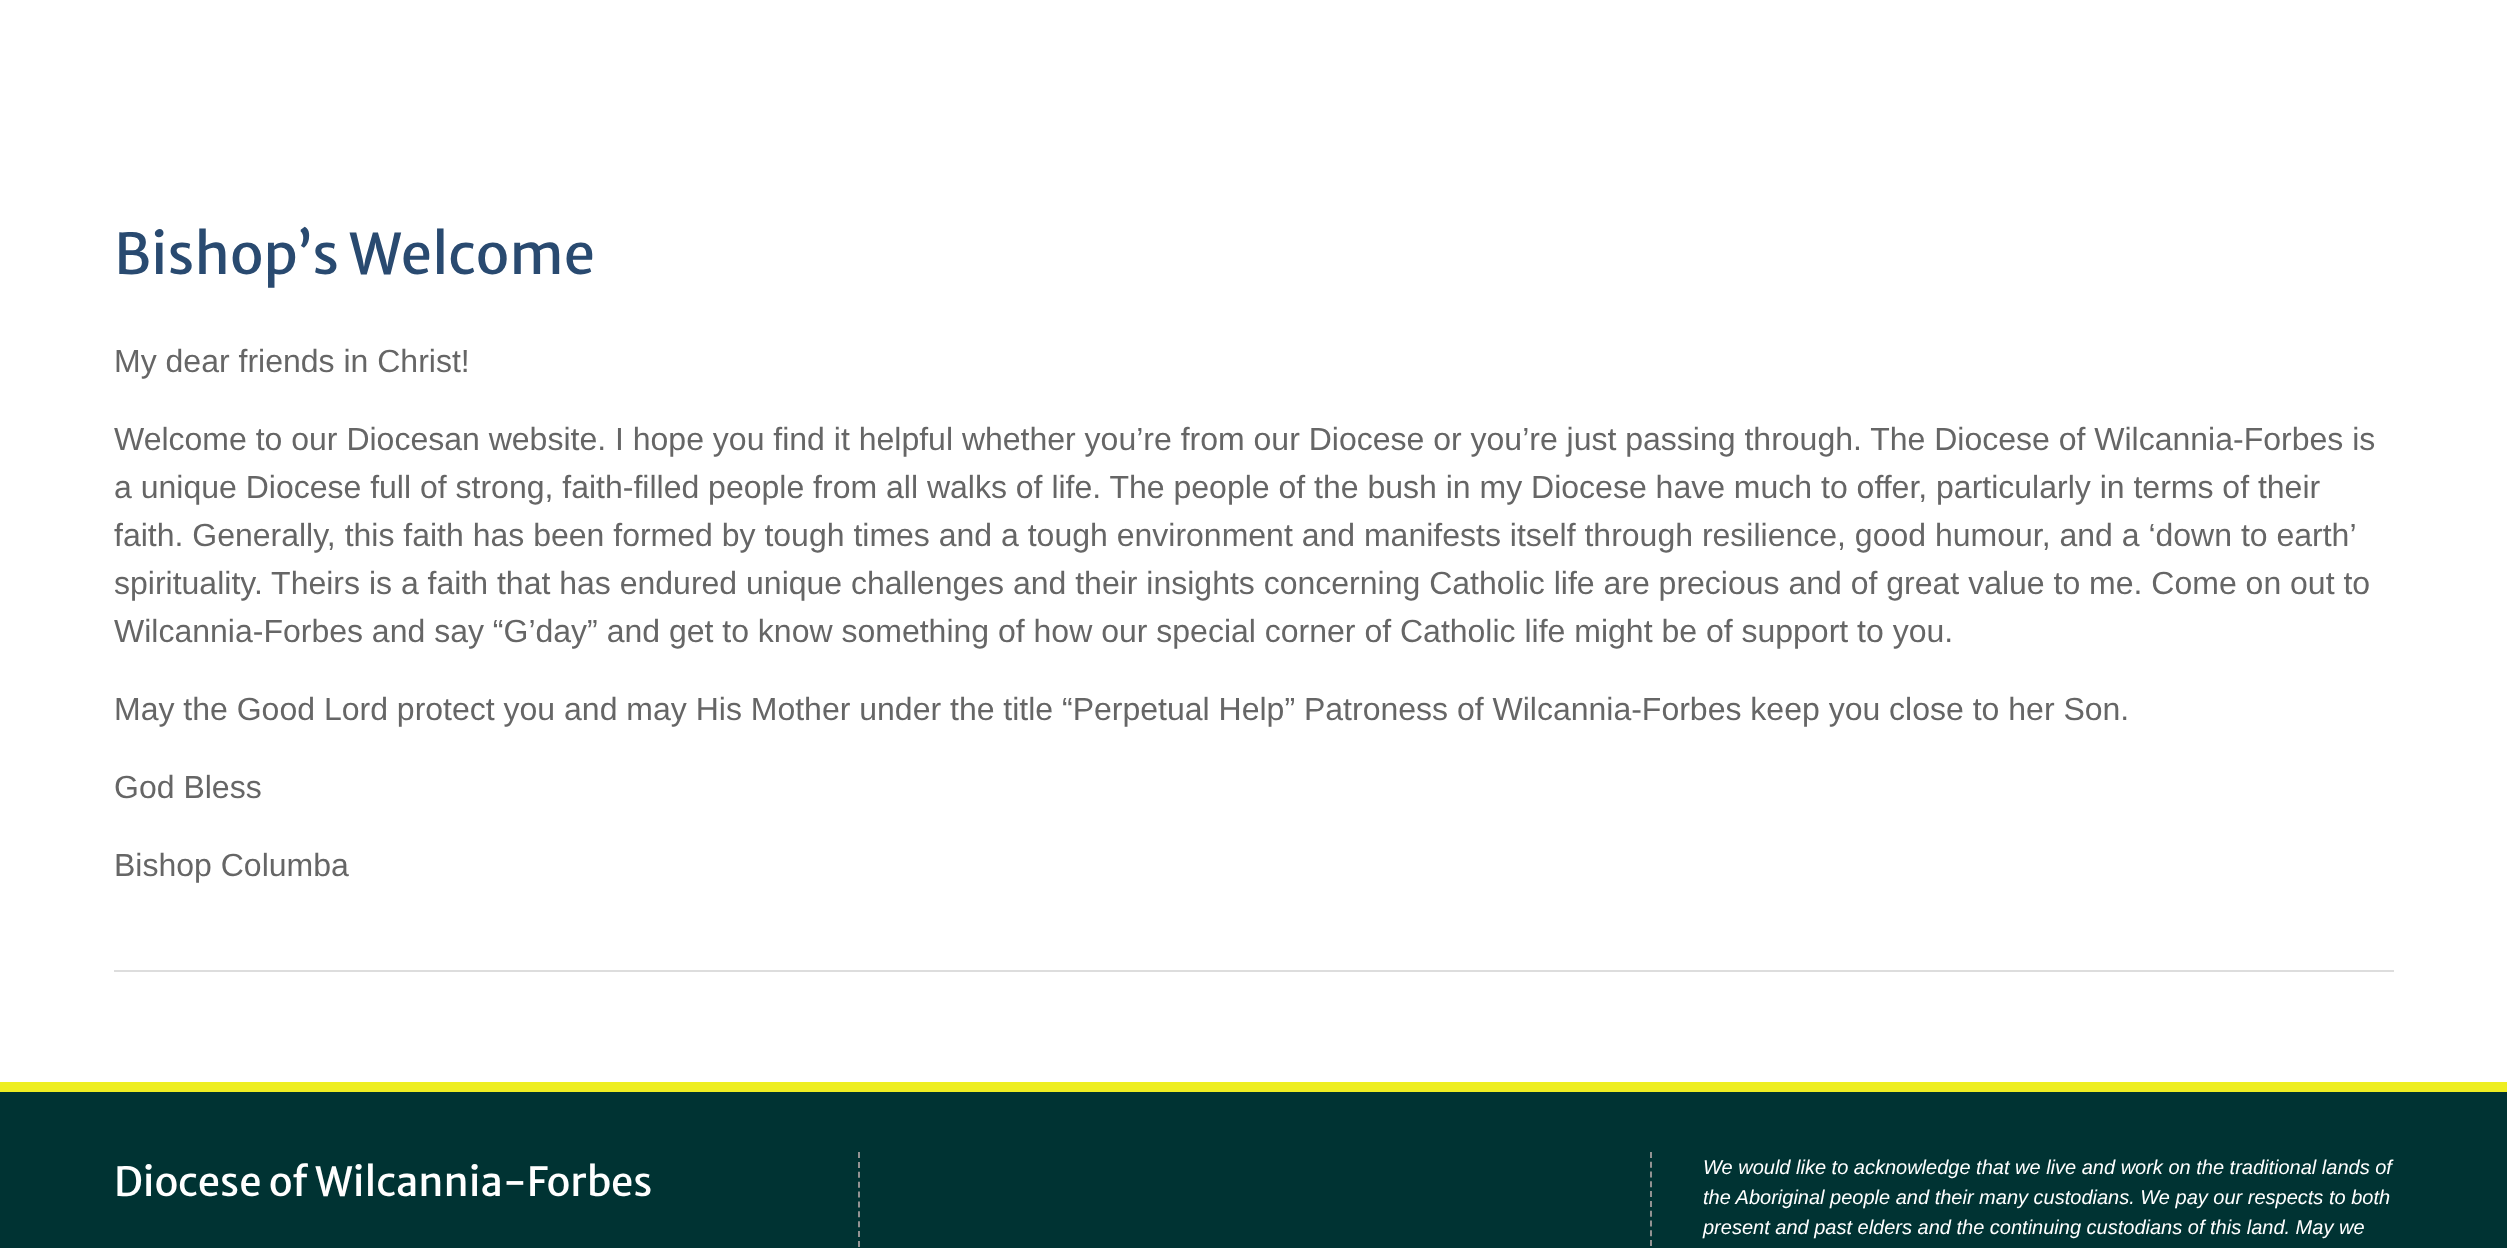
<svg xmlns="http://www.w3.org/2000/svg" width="2507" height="1248">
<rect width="100%" height="100%" fill="#fff"/>
<rect x="114" y="970" width="2280" height="2" fill="#ddd"/>
<text x="114" y="274" style="font-family:Merriweather Sans;font-size:56px;fill:#294a70">Bishop’s Welcome</text>
<text x="114" y="372" style="font-family:Liberation Sans;font-size:32px;fill:#666">My dear friends in Christ!</text>
<text x="114" y="450" style="font-family:Liberation Sans;font-size:32px;fill:#666">Welcome to our Diocesan website. I hope you find it helpful whether you’re from our Diocese or you’re just passing through. The Diocese of Wilcannia-Forbes is</text>
<text x="114" y="498" style="font-family:Liberation Sans;font-size:32px;fill:#666">a unique Diocese full of strong, faith-filled people from all walks of life. The people of the bush in my Diocese have much to offer, particularly in terms of their</text>
<text x="114" y="546" style="font-family:Liberation Sans;font-size:32px;fill:#666">faith. Generally, this faith has been formed by tough times and a tough environment and manifests itself through resilience, good humour, and a ‘down to earth’</text>
<text x="114" y="594" style="font-family:Liberation Sans;font-size:32px;fill:#666">spirituality. Theirs is a faith that has endured unique challenges and their insights concerning Catholic life are precious and of great value to me. Come on out to</text>
<text x="114" y="642" style="font-family:Liberation Sans;font-size:32px;fill:#666">Wilcannia-Forbes and say “G’day” and get to know something of how our special corner of Catholic life might be of support to you.</text>
<text x="114" y="720" style="font-family:Liberation Sans;font-size:32px;fill:#666">May the Good Lord protect you and may His Mother under the title “Perpetual Help” Patroness of Wilcannia-Forbes keep you close to her Son.</text>
<text x="114" y="798" style="font-family:Liberation Sans;font-size:32px;fill:#666">God Bless</text>
<text x="114" y="876" style="font-family:Liberation Sans;font-size:32px;fill:#666">Bishop Columba</text>
<rect y="1092" width="2507" height="156" fill="#033"/>
<rect y="1082" width="2507" height="10" fill="#ee2"/>
<text x="114" y="1196" style="font-family:Merriweather Sans;font-size:40px;fill:#fff">Diocese of Wilcannia-Forbes</text>
<path d="M859 1152v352" fill="none" stroke="#939393" stroke-width="2" stroke-dasharray="6 3.88"/>
<path d="M1651 1152v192" fill="none" stroke="#939393" stroke-width="2" stroke-dasharray="6 3.78"/>
<text x="1703" y="1174" style="font-family:Liberation Sans;font-size:20px;font-style:italic;fill:#fff">We would like to acknowledge that we live and work on the traditional lands of</text>
<text x="1703" y="1204" style="font-family:Liberation Sans;font-size:20px;font-style:italic;fill:#fff">the Aboriginal people and their many custodians. We pay our respects to both</text>
<text x="1703" y="1234" style="font-family:Liberation Sans;font-size:20px;font-style:italic;fill:#fff">present and past elders and the continuing custodians of this land. May we</text>
</svg>
